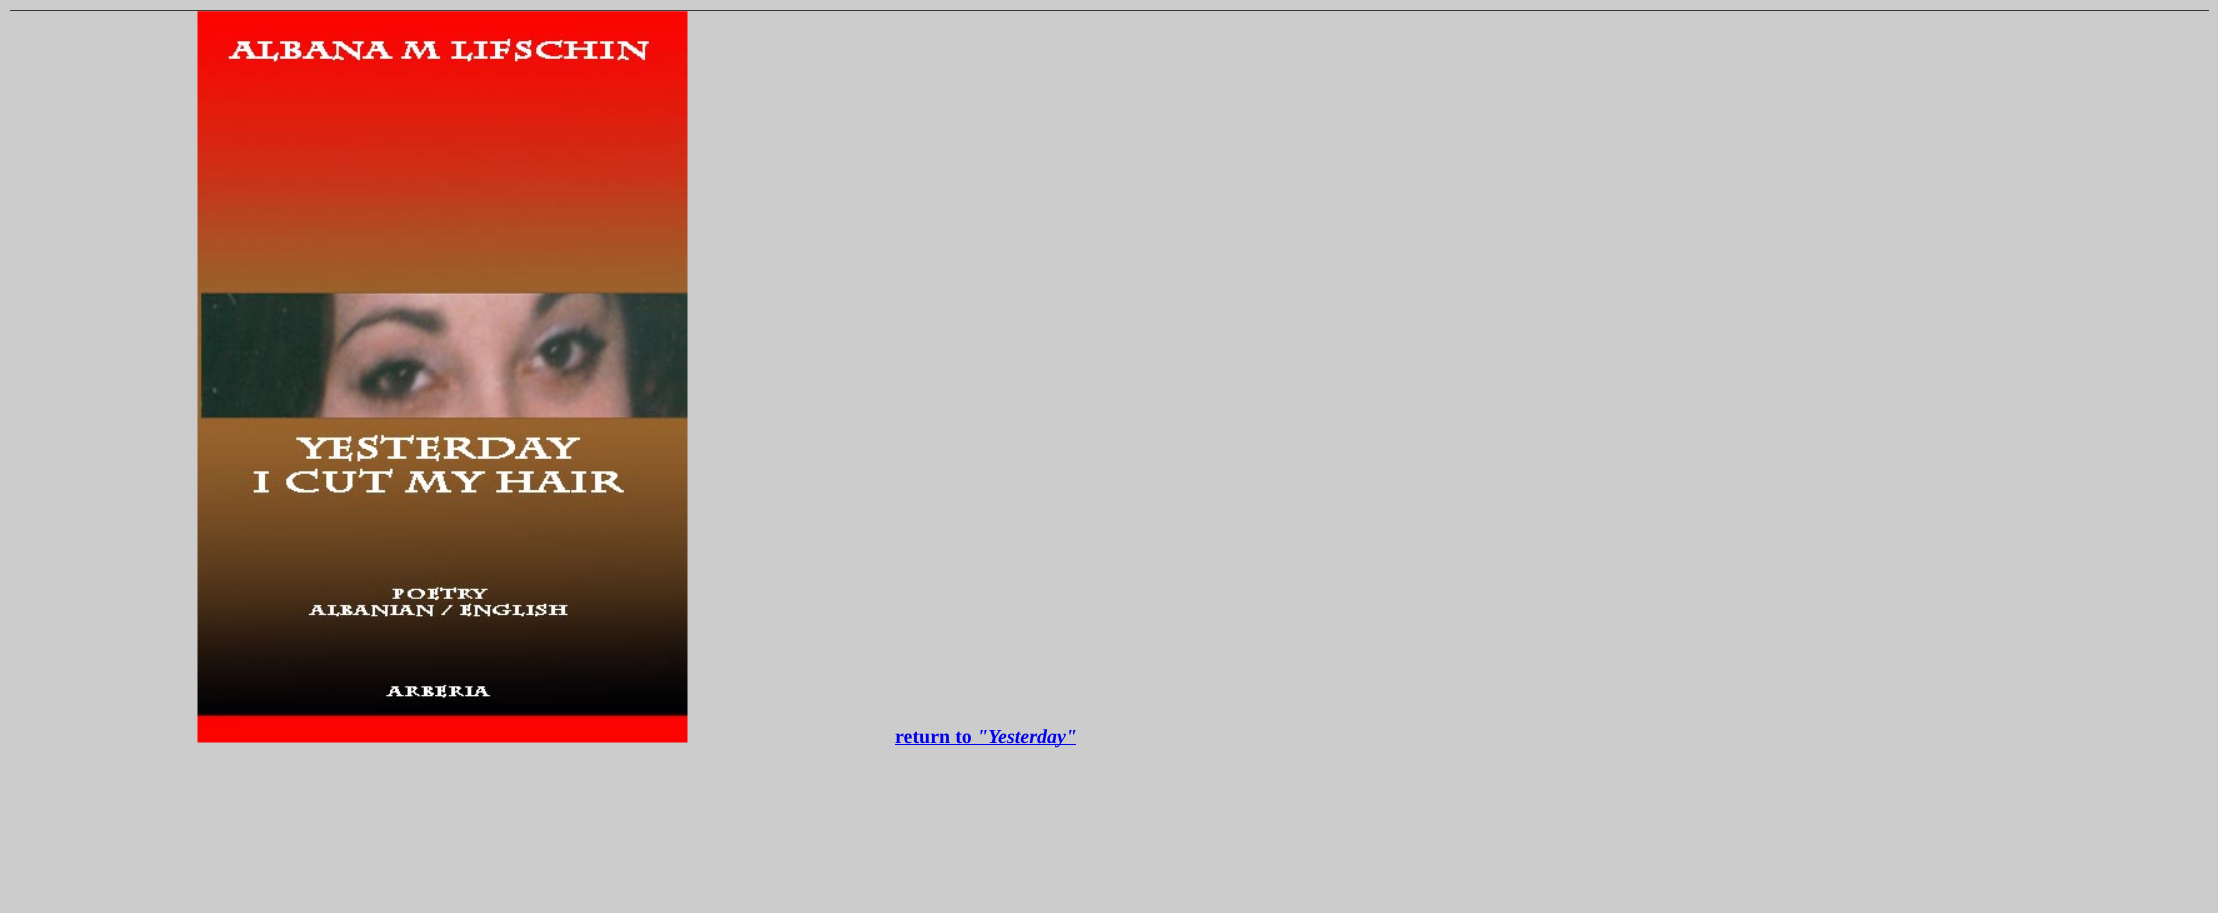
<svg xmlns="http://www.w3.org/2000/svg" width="2218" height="913">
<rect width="100%" height="100%" fill="#ccc"/>
<rect x="10" y="10" width="2199" height="1" fill="#393939"/>
<image x="197" y="11" width="491" height="732" href="media/1.png"/>
<text x="895" y="743" style="font-family:Liberation Serif;font-size:20px;font-weight:bold;fill:#00e">return to</text>
<rect x="895" y="744" width="181" height="1" fill="#00e"/>
<text x="977" y="743" style="font-family:Liberation Serif;font-size:20px;font-weight:bold;font-style:italic;fill:#00e">"Yesterday"</text>
</svg>
